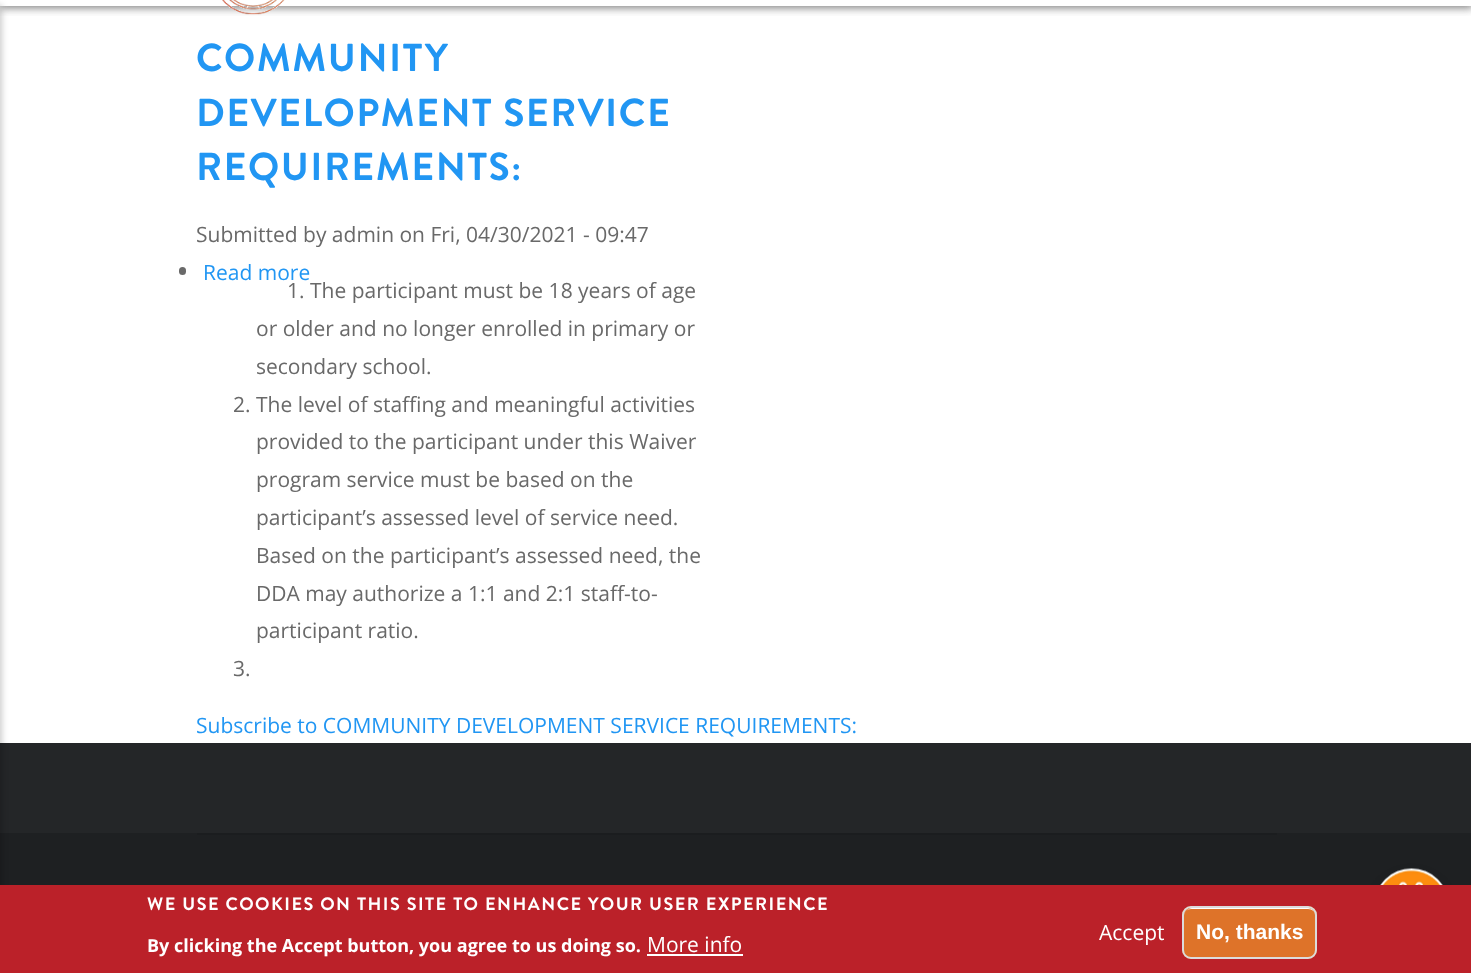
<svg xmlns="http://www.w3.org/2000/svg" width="1471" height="973">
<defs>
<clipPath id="clip1"><rect x="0" y="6" width="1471" height="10"/></clipPath>
</defs>
<rect width="100%" height="100%" fill="#fff"/>
<rect y="743" width="1471" height="90" fill="#242628"/>
<rect y="833" width="1471" height="52" fill="#1e2022"/>
<rect x="-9" y="5" width="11" height="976" fill="#00000033" filter="blur(3px)"/>
<rect x="197" y="833" width="1080" height="2" fill="#1b1d1f"/>
<g clip-path="url(#clip1)">
<rect x="-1" y="-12" width="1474" height="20" fill="#808080" filter="blur(4px)"/>
</g>
<image x="222" y="0" width="63" height="15" href="media/1.png"/>
<text x="196" y="71" style="font-family:Brandon Grotesque;font-size:39px;font-weight:bold;letter-spacing:1.5px;fill:#2196f3">COMMUNITY</text>
<text x="196" y="126" style="font-family:Brandon Grotesque;font-size:39px;font-weight:bold;letter-spacing:1.5px;fill:#2196f3">DEVELOPMENT SERVICE</text>
<text x="196" y="180" style="font-family:Brandon Grotesque;font-size:39px;font-weight:bold;letter-spacing:1.5px;fill:#2196f3">REQUIREMENTS:</text>
<text x="196" y="242" style="font-family:Open Sans;font-size:21px;fill:#696969">Submitted by admin on Fri, 04/30/2021 - 09:47</text>
<rect x="179" y="267" width="7" height="8" rx="3.5" fill="#696969"/>
<text x="203" y="280" style="font-family:Open Sans;font-size:21px;fill:#2196f3">Read more</text>
<text x="287" y="298" style="font-family:Open Sans;font-size:21px;fill:#696969">1. The participant must be 18 years of age</text>
<text x="256" y="336" style="font-family:Open Sans;font-size:21px;fill:#696969">or older and no longer enrolled in primary or</text>
<text x="256" y="374" style="font-family:Open Sans;font-size:21px;fill:#696969">secondary school.</text>
<text x="233" y="412" style="font-family:Open Sans;font-size:21px;fill:#696969">2. The level of staffing and meaningful activities</text>
<text x="256" y="449" style="font-family:Open Sans;font-size:21px;fill:#696969">provided to the participant under this Waiver</text>
<text x="256" y="487" style="font-family:Open Sans;font-size:21px;fill:#696969">program service must be based on the</text>
<text x="256" y="525" style="font-family:Open Sans;font-size:21px;fill:#696969">participant’s assessed level of service need.</text>
<text x="256" y="563" style="font-family:Open Sans;font-size:21px;fill:#696969">Based on the participant’s assessed need, the</text>
<text x="256" y="601" style="font-family:Open Sans;font-size:21px;fill:#696969">DDA may authorize a 1:1 and 2:1 staff-to-</text>
<text x="256" y="638" style="font-family:Open Sans;font-size:21px;fill:#696969">participant ratio.</text>
<text x="233" y="676" style="font-family:Open Sans;font-size:21px;fill:#696969">3.</text>
<text x="196" y="733" style="font-family:Open Sans;font-size:21px;fill:#2196f3">Subscribe to COMMUNITY DEVELOPMENT SERVICE REQUIREMENTS:</text>
<rect x="1374" y="875" width="75" height="75" rx="37.5" fill="#00000033" filter="blur(6px)"/>
<rect y="885" width="1471" height="88" fill="#bb2129"/>
<text x="147" y="910" style="font-family:Brandon Grotesque;font-size:18px;font-weight:bold;letter-spacing:1.5px;fill:#fff">WE USE COOKIES ON THIS SITE TO ENHANCE YOUR USER EXPERIENCE</text>
<text x="147" y="952" style="font-family:Open Sans;font-size:18px;font-weight:bold;fill:#fff">By clicking the Accept button, you agree to us doing so.</text>
<text x="647" y="952" style="font-family:Open Sans;font-size:21px;fill:#fff">More info</text>
<rect x="647" y="954" width="96" height="2" fill="#fff"/>
<text x="1099" y="940" style="font-family:Open Sans;font-size:21px;fill:#fff">Accept</text>
<rect x="1182" y="906" width="135" height="53" rx="9" fill="#de7329"/>
<path d="M1191 909h117c4 0 8 3 8 7c0-4-4-8-8-8h-116c-4 0-8 4-8 8c0-4 3-7 7-7z" fill="#fff"/>
<rect x="1183" y="907" width="133" height="51" rx="8" fill="none" stroke="#dcdcdc" stroke-width="2"/>
<text x="1196" y="939" style="font-family:Liberation Sans;font-size:21px;font-weight:bold;fill:#fff">No, thanks</text>
<image x="1380" y="868" width="63" height="17" href="media/2.png"/>
</svg>
